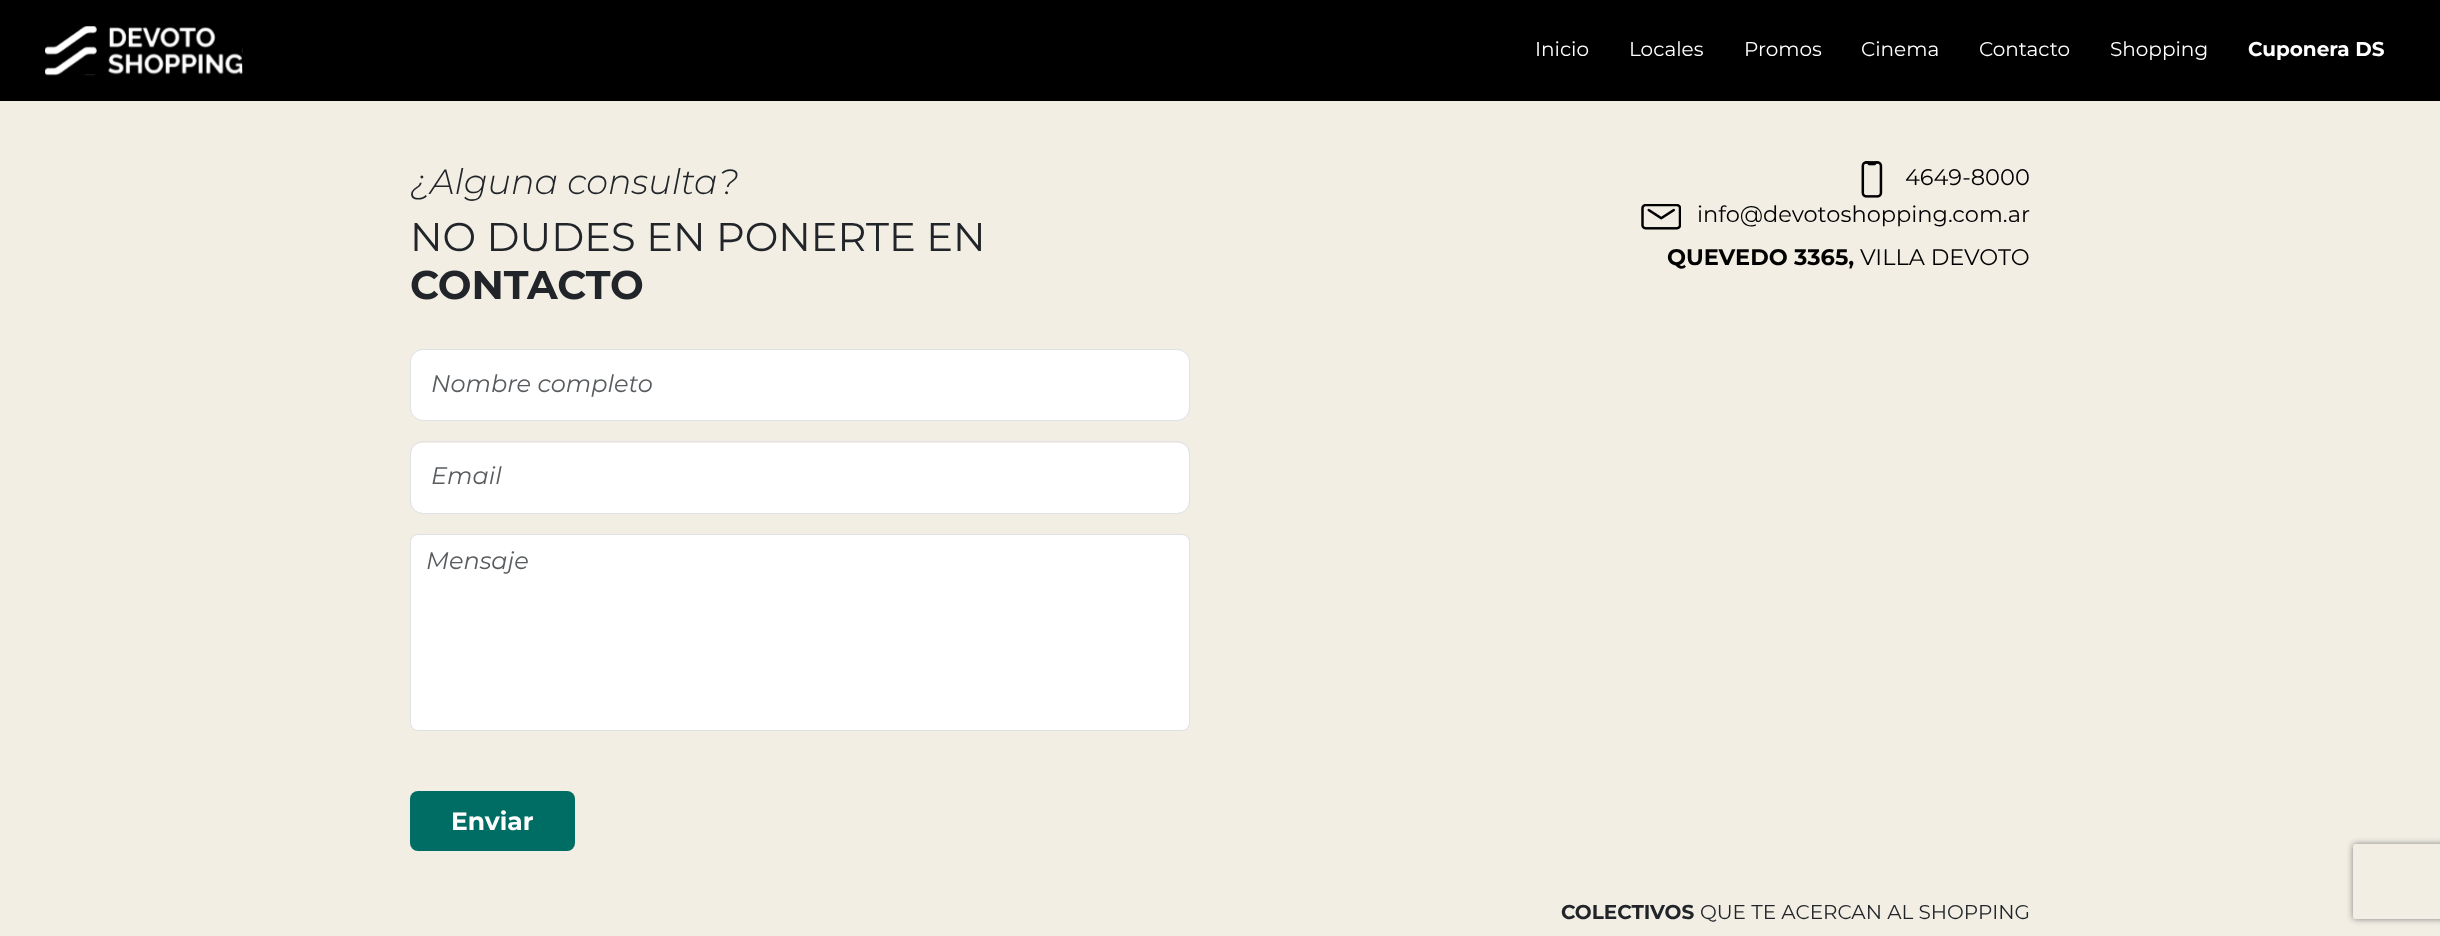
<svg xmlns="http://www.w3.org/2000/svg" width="2440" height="936">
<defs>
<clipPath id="clip1"><path d="M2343 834h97v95h-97zm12.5 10h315c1.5 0 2.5 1 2.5 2.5v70c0 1.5-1 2.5-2.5 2.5h-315c-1.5 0-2.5-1-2.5-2.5v-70c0-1.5 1-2.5 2.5-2.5z" clip-rule="evenodd"/></clipPath>
</defs>
<rect width="100%" height="100%" fill="#f2eee4"/>
<rect width="2440" height="101" fill="#000"/>
<image x="45" y="26" width="198" height="50" href="media/1.png"/>
<text x="1535" y="56" style="font-family:Montserrat;font-size:20px;fill:#fff">Inicio</text>
<text x="1629" y="56" style="font-family:Montserrat;font-size:20px;fill:#fff">Locales</text>
<text x="1744" y="56" style="font-family:Montserrat;font-size:20px;fill:#fff">Promos</text>
<text x="1861" y="56" style="font-family:Montserrat;font-size:20px;fill:#fff">Cinema</text>
<text x="1979" y="56" style="font-family:Montserrat;font-size:20px;fill:#fff">Contacto</text>
<text x="2110" y="56" style="font-family:Montserrat;font-size:20px;fill:#fff">Shopping</text>
<text x="2248" y="56" style="font-family:Montserrat;font-size:20px;font-weight:bold;fill:#fff">Cuponera DS</text>
<text x="410" y="194" style="font-family:Montserrat;font-size:35px;font-weight:300;font-style:italic;fill:#212529">¿Alguna consulta?</text>
<text x="410" y="251" style="font-family:Montserrat;font-size:40px;fill:#212529">NO DUDES EN PONERTE EN</text>
<text x="410" y="299" style="font-family:Montserrat;font-size:40px;font-weight:bold;fill:#212529">CONTACTO</text>
<rect x="411" y="350" width="778" height="70" rx="11" fill="#fff"/>
<rect x="410.5" y="349.5" width="779" height="71" rx="12.5" fill="none" stroke="#dee2e6"/>
<text x="431" y="392" style="font-family:Montserrat;font-size:24px;font-style:italic;fill:#595c5f">Nombre completo</text>
<rect x="411" y="443" width="778" height="70" rx="11" fill="#fff"/>
<rect x="410.5" y="441.5" width="779" height="72" rx="12.5" fill="none" stroke="#dee2e6"/>
<text x="431" y="484" style="font-family:Montserrat;font-size:24px;font-style:italic;fill:#595c5f">Email</text>
<rect x="411" y="535" width="778" height="195" rx="6" fill="#fff"/>
<rect x="410.5" y="534.5" width="779" height="196" rx="7.5" fill="none" stroke="#dee2e6"/>
<text x="426" y="569" style="font-family:Montserrat;font-size:24px;font-style:italic;fill:#595c5f">Mensaje</text>
<rect x="410" y="791" width="165" height="60" rx="8" fill="#006d65"/>
<text x="451" y="830" style="font-family:Montserrat;font-size:25px;font-weight:bold;fill:#fff">Enviar</text>
<image x="1861" y="161" width="22" height="37" href="media/2.png"/>
<text x="1905" y="185" style="font-family:Montserrat;font-size:22.5px;fill:#000">4649-8000</text>
<image x="1641" y="204" width="40" height="26" href="media/3.png"/>
<text x="1697" y="222" style="font-family:Montserrat;font-size:22.5px;fill:#000">info@devotoshopping.com.ar</text>
<text x="1667" y="265" style="font-family:Montserrat;font-size:22.5px;font-weight:bold;fill:#000">QUEVEDO 3365,</text>
<text x="1860" y="265" style="font-family:Montserrat;font-size:22.5px;fill:#000">VILLA DEVOTO</text>
<text x="1561" y="919" style="font-family:Montserrat;font-size:20px;font-weight:bold;fill:#212529">COLECTIVOS</text>
<text x="1700" y="919" style="font-family:Montserrat;font-size:20px;fill:#212529">QUE TE ACERCAN AL SHOPPING</text>
<g clip-path="url(#clip1)">
<rect x="2353" y="844" width="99" height="75" rx="2.5" fill="#808080" filter="blur(3px)"/>
</g>
</svg>
